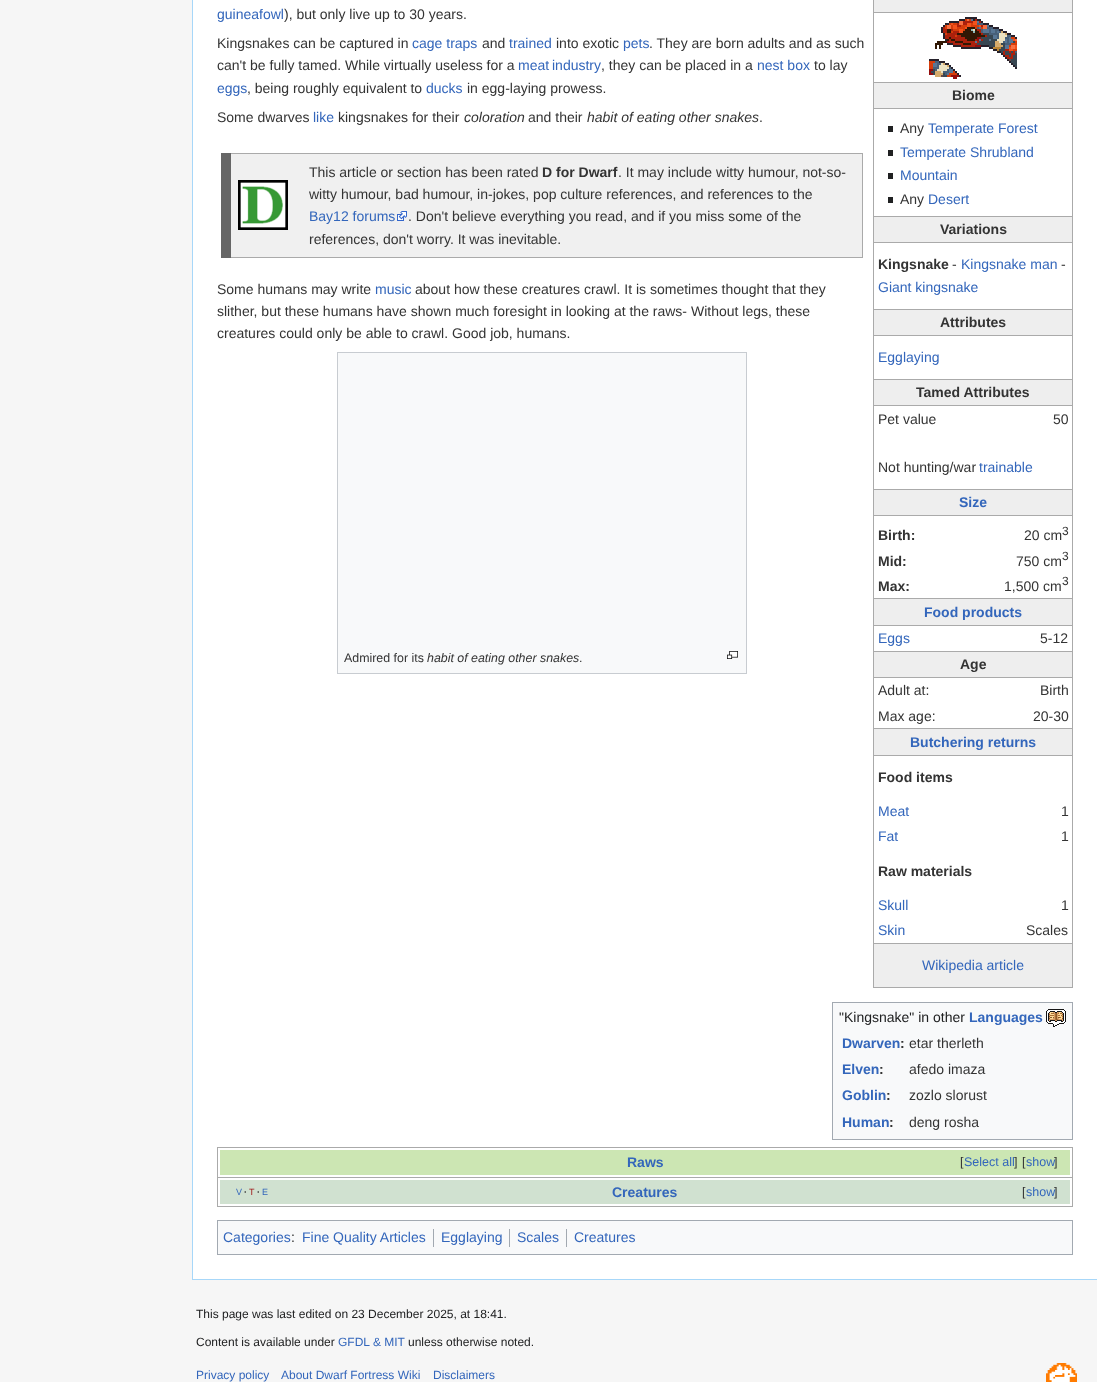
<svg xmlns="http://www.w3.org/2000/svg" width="1097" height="1382">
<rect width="100%" height="100%" fill="#f6f6f6"/>
<rect x="193" width="904" height="1279" fill="#fff"/>
<rect x="192" y="1279" width="905" height="1" fill="#a7d7f9"/>
<rect x="192" width="1" height="1280" fill="#a7d7f9"/>
<text x="217" y="19" style="font-family:Liberation Sans;font-size:14px;fill:#36b">guineafowl</text>
<text x="284" y="19" style="font-family:Liberation Sans;font-size:14px;fill:#333">), but only live up to 30 years.</text>
<text x="217" y="48" style="font-family:Liberation Sans;font-size:14px;fill:#333">Kingsnakes can be captured in</text>
<text x="412" y="48" style="font-family:Liberation Sans;font-size:14px;fill:#36b">cage traps</text>
<text x="482" y="48" style="font-family:Liberation Sans;font-size:14px;fill:#333">and</text>
<text x="509" y="48" style="font-family:Liberation Sans;font-size:14px;fill:#36b">trained</text>
<text x="556" y="48" style="font-family:Liberation Sans;font-size:14px;fill:#333">into exotic</text>
<text x="623" y="48" style="font-family:Liberation Sans;font-size:14px;fill:#36b">pets</text>
<text x="649" y="48" style="font-family:Liberation Sans;font-size:14px;fill:#333">. They are born adults and as such</text>
<text x="217" y="70" style="font-family:Liberation Sans;font-size:14px;fill:#333">can't be fully tamed. While virtually useless for a</text>
<text x="518" y="70" word-spacing="-1" style="font-family:Liberation Sans;font-size:14px;fill:#36b">meat industry</text>
<text x="601" y="70" style="font-family:Liberation Sans;font-size:14px;fill:#333">, they can be placed in a</text>
<text x="757" y="70" style="font-family:Liberation Sans;font-size:14px;fill:#36b">nest box</text>
<text x="814" y="70" style="font-family:Liberation Sans;font-size:14px;fill:#333">to lay</text>
<text x="217" y="93" style="font-family:Liberation Sans;font-size:14px;fill:#36b">eggs</text>
<text x="247" y="93" style="font-family:Liberation Sans;font-size:14px;fill:#333">, being roughly equivalent to</text>
<text x="426" y="93" style="font-family:Liberation Sans;font-size:14px;fill:#36b">ducks</text>
<text x="467" y="93" style="font-family:Liberation Sans;font-size:14px;fill:#333">in egg-laying prowess.</text>
<text x="217" y="122" style="font-family:Liberation Sans;font-size:14px;fill:#333">Some dwarves</text>
<text x="313" y="122" style="font-family:Liberation Sans;font-size:14px;fill:#36b">like</text>
<text x="338" y="122" style="font-family:Liberation Sans;font-size:14px;fill:#333">kingsnakes for their</text>
<text x="464" y="122" style="font-family:Liberation Sans;font-size:14px;font-style:italic;fill:#333">coloration</text>
<text x="528" y="122" style="font-family:Liberation Sans;font-size:14px;fill:#333">and their</text>
<text x="587" y="122" style="font-family:Liberation Sans;font-size:14px;font-style:italic;fill:#333">habit of eating other snakes</text>
<text x="759" y="122" style="font-family:Liberation Sans;font-size:14px;fill:#333">.</text>
<rect x="873.5" y="-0.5" width="199" height="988" fill="none" stroke="#aaa"/>
<rect x="874" width="198" height="12" fill="#eee"/>
<rect x="874" y="12" width="198" height="1" fill="#aaa"/>
<image x="929" y="17" width="88" height="62" href="media/1.png"/>
<rect x="874" y="83" width="198" height="25" fill="#eee"/>
<rect x="874" y="82" width="198" height="1" fill="#aaa"/>
<rect x="874" y="108" width="198" height="1" fill="#aaa"/>
<text x="952" y="100" style="font-family:Liberation Sans;font-size:14px;font-weight:bold;fill:#333">Biome</text>
<rect x="888" y="126" width="5" height="6" fill="#202122"/>
<text x="900" y="133" style="font-family:Liberation Sans;font-size:14px;fill:#333">Any</text>
<text x="928" y="133" style="font-family:Liberation Sans;font-size:14px;fill:#36b">Temperate Forest</text>
<rect x="888" y="150" width="5" height="6" fill="#202122"/>
<text x="900" y="157" style="font-family:Liberation Sans;font-size:14px;fill:#36b">Temperate Shrubland</text>
<rect x="888" y="173" width="5" height="6" fill="#202122"/>
<text x="900" y="180" style="font-family:Liberation Sans;font-size:14px;fill:#36b">Mountain</text>
<rect x="888" y="197" width="5" height="6" fill="#202122"/>
<text x="900" y="204" style="font-family:Liberation Sans;font-size:14px;fill:#333">Any</text>
<text x="928" y="204" style="font-family:Liberation Sans;font-size:14px;fill:#36b">Desert</text>
<rect x="874" y="217" width="198" height="25" fill="#eee"/>
<rect x="874" y="216" width="198" height="1" fill="#aaa"/>
<rect x="874" y="242" width="198" height="1" fill="#aaa"/>
<text x="940" y="234" style="font-family:Liberation Sans;font-size:14px;font-weight:bold;fill:#333">Variations</text>
<text x="878" y="269" style="font-family:Liberation Sans;font-size:14px;font-weight:bold;fill:#333">Kingsnake</text>
<text x="952" y="269" style="font-family:Liberation Sans;font-size:14px;fill:#333">-</text>
<text x="961" y="269" style="font-family:Liberation Sans;font-size:14px;fill:#36b">Kingsnake man</text>
<text x="1061" y="269" style="font-family:Liberation Sans;font-size:14px;fill:#333">-</text>
<text x="878" y="292" style="font-family:Liberation Sans;font-size:14px;fill:#36b">Giant kingsnake</text>
<rect x="874" y="310" width="198" height="25" fill="#eee"/>
<rect x="874" y="309" width="198" height="1" fill="#aaa"/>
<rect x="874" y="335" width="198" height="1" fill="#aaa"/>
<text x="940" y="327" style="font-family:Liberation Sans;font-size:14px;font-weight:bold;fill:#333">Attributes</text>
<text x="878" y="362" style="font-family:Liberation Sans;font-size:14px;fill:#36b">Egglaying</text>
<rect x="874" y="380" width="198" height="25" fill="#eee"/>
<rect x="874" y="379" width="198" height="1" fill="#aaa"/>
<rect x="874" y="405" width="198" height="1" fill="#aaa"/>
<text x="916" y="397" style="font-family:Liberation Sans;font-size:14px;font-weight:bold;fill:#333">Tamed Attributes</text>
<text x="878" y="424" style="font-family:Liberation Sans;font-size:14px;fill:#333">Pet value</text>
<text x="1053" y="424" style="font-family:Liberation Sans;font-size:14px;fill:#333">50</text>
<text x="878" y="472" style="font-family:Liberation Sans;font-size:14px;fill:#333">Not hunting/war</text>
<text x="979" y="472" style="font-family:Liberation Sans;font-size:14px;fill:#36b">trainable</text>
<rect x="874" y="490" width="198" height="25" fill="#eee"/>
<rect x="874" y="489" width="198" height="1" fill="#aaa"/>
<rect x="874" y="515" width="198" height="1" fill="#aaa"/>
<text x="959" y="507" style="font-family:Liberation Sans;font-size:14px;font-weight:bold;fill:#36b">Size</text>
<text x="878" y="540" style="font-family:Liberation Sans;font-size:14px;font-weight:bold;fill:#333">Birth:</text>
<text x="1024" y="540" style="font-family:Liberation Sans;font-size:14px;fill:#333">20 cm</text>
<text x="1062" y="535" style="font-family:Liberation Sans;font-size:12px;fill:#333">3</text>
<text x="878" y="566" style="font-family:Liberation Sans;font-size:14px;font-weight:bold;fill:#333">Mid:</text>
<text x="1016" y="566" style="font-family:Liberation Sans;font-size:14px;fill:#333">750 cm</text>
<text x="1062" y="560" style="font-family:Liberation Sans;font-size:12px;fill:#333">3</text>
<text x="878" y="591" style="font-family:Liberation Sans;font-size:14px;font-weight:bold;fill:#333">Max:</text>
<text x="1004" y="591" style="font-family:Liberation Sans;font-size:14px;fill:#333">1,500 cm</text>
<text x="1062" y="585" style="font-family:Liberation Sans;font-size:12px;fill:#333">3</text>
<rect x="874" y="599" width="198" height="26" fill="#eee"/>
<rect x="874" y="598" width="198" height="1" fill="#aaa"/>
<rect x="874" y="625" width="198" height="1" fill="#aaa"/>
<text x="924" y="617" style="font-family:Liberation Sans;font-size:14px;font-weight:bold;fill:#36b">Food products</text>
<text x="878" y="643" style="font-family:Liberation Sans;font-size:14px;fill:#36b">Eggs</text>
<text x="1040" y="643" style="font-family:Liberation Sans;font-size:14px;fill:#333">5-12</text>
<rect x="874" y="652" width="198" height="25" fill="#eee"/>
<rect x="874" y="651" width="198" height="1" fill="#aaa"/>
<rect x="874" y="677" width="198" height="1" fill="#aaa"/>
<text x="960" y="669" style="font-family:Liberation Sans;font-size:14px;font-weight:bold;fill:#333">Age</text>
<text x="878" y="695" style="font-family:Liberation Sans;font-size:14px;fill:#333">Adult at:</text>
<text x="1040" y="695" style="font-family:Liberation Sans;font-size:14px;fill:#333">Birth</text>
<text x="878" y="721" style="font-family:Liberation Sans;font-size:14px;fill:#333">Max age:</text>
<text x="1033" y="721" style="font-family:Liberation Sans;font-size:14px;fill:#333">20-30</text>
<rect x="874" y="729" width="198" height="26" fill="#eee"/>
<rect x="874" y="728" width="198" height="1" fill="#aaa"/>
<rect x="874" y="755" width="198" height="1" fill="#aaa"/>
<text x="910" y="747" style="font-family:Liberation Sans;font-size:14px;font-weight:bold;fill:#36b">Butchering returns</text>
<text x="878" y="782" style="font-family:Liberation Sans;font-size:14px;font-weight:bold;fill:#333">Food items</text>
<text x="878" y="816" style="font-family:Liberation Sans;font-size:14px;fill:#36b">Meat</text>
<text x="1061" y="816" style="font-family:Liberation Sans;font-size:14px;fill:#333">1</text>
<text x="878" y="841" style="font-family:Liberation Sans;font-size:14px;fill:#36b">Fat</text>
<text x="1061" y="841" style="font-family:Liberation Sans;font-size:14px;fill:#333">1</text>
<text x="878" y="876" style="font-family:Liberation Sans;font-size:14px;font-weight:bold;fill:#333">Raw materials</text>
<text x="878" y="910" style="font-family:Liberation Sans;font-size:14px;fill:#36b">Skull</text>
<text x="1061" y="910" style="font-family:Liberation Sans;font-size:14px;fill:#333">1</text>
<text x="878" y="935" style="font-family:Liberation Sans;font-size:14px;fill:#36b">Skin</text>
<text x="1026" y="935" style="font-family:Liberation Sans;font-size:14px;fill:#333">Scales</text>
<rect x="874" y="944" width="198" height="43" fill="#eee"/>
<rect x="874" y="943" width="198" height="1" fill="#aaa"/>
<text x="922" y="970" style="font-family:Liberation Sans;font-size:14px;fill:#36b">Wikipedia article</text>
<rect x="231" y="154" width="631" height="103" fill="#f0f0f0"/>
<rect x="231" y="153" width="632" height="1" fill="#aaa"/>
<rect x="862" y="153" width="1" height="105" fill="#aaa"/>
<rect x="231" y="257" width="632" height="1" fill="#aaa"/>
<rect x="221" y="153" width="10" height="105" fill="#666"/>
<image x="238" y="180" width="50" height="50" href="media/2.png"/>
<text x="309" y="177" style="font-family:Liberation Sans;font-size:14px;fill:#333">This article or section has been rated</text>
<text x="542" y="177" style="font-family:Liberation Sans;font-size:14px;font-weight:bold;fill:#333">D for Dwarf</text>
<text x="618" y="177" style="font-family:Liberation Sans;font-size:14px;fill:#333">. It may include witty humour, not-so-</text>
<text x="309" y="199" style="font-family:Liberation Sans;font-size:14px;fill:#333">witty humour, bad humour, in-jokes, pop culture references, and references to the</text>
<text x="309" y="221" style="font-family:Liberation Sans;font-size:14px;fill:#36b">Bay12 forums</text>
<image x="397" y="211" width="10" height="10" href="media/3.png"/>
<text x="408" y="221" style="font-family:Liberation Sans;font-size:14px;fill:#333">. Don't believe everything you read, and if you miss some of the</text>
<text x="309" y="244" style="font-family:Liberation Sans;font-size:14px;fill:#333">references, don't worry. It was inevitable.</text>
<text x="217" y="294" style="font-family:Liberation Sans;font-size:14px;fill:#333">Some humans may write</text>
<text x="375" y="294" style="font-family:Liberation Sans;font-size:14px;fill:#36b">music</text>
<text x="415" y="294" style="font-family:Liberation Sans;font-size:14px;fill:#333">about how these creatures crawl. It is sometimes thought that they</text>
<text x="217" y="316" style="font-family:Liberation Sans;font-size:14px;fill:#333">slither, but these humans have shown much foresight in looking at the raws- Without legs, these</text>
<text x="217" y="338" style="font-family:Liberation Sans;font-size:14px;fill:#333">creatures could only be able to crawl. Good job, humans.</text>
<rect x="337.5" y="352.5" width="409" height="321" fill="#f8f9fa" stroke="#c8ccd1"/>
<text x="344" y="662" style="font-family:Liberation Sans;font-size:12.4px;fill:#333">Admired for its</text>
<text x="427" y="662" style="font-family:Liberation Sans;font-size:12.4px;font-style:italic;fill:#333">habit of eating other snakes</text>
<text x="579" y="662" style="font-family:Liberation Sans;font-size:12.4px;fill:#333">.</text>
<image x="727" y="651" width="11" height="8" href="media/4.png"/>
<rect x="833" y="1003" width="239" height="136" fill="#f8f9fa"/>
<rect x="832" y="1002" width="241" height="1" fill="#a2a9b1"/>
<rect x="1072" y="1002" width="1" height="138" fill="#a2a9b1"/>
<rect x="832" y="1139" width="241" height="1" fill="#a2a9b1"/>
<rect x="832" y="1002" width="1" height="138" fill="#a2a9b1"/>
<text x="839" y="1022" style="font-family:Liberation Sans;font-size:14px;fill:#202122">"Kingsnake" in other</text>
<text x="969" y="1022" style="font-family:Liberation Sans;font-size:14px;font-weight:bold;fill:#36b">Languages</text>
<image x="1046" y="1009" width="20" height="18" href="media/5.png"/>
<text x="842" y="1048" style="font-family:Liberation Sans;font-size:14px;font-weight:bold;fill:#36b">Dwarven</text>
<text x="900" y="1048" style="font-family:Liberation Sans;font-size:14px;font-weight:bold;fill:#333">:</text>
<text x="909" y="1048" style="font-family:Liberation Sans;font-size:14px;fill:#333">etar therleth</text>
<text x="842" y="1074" style="font-family:Liberation Sans;font-size:14px;font-weight:bold;fill:#36b">Elven</text>
<text x="879" y="1074" style="font-family:Liberation Sans;font-size:14px;font-weight:bold;fill:#333">:</text>
<text x="909" y="1074" style="font-family:Liberation Sans;font-size:14px;fill:#333">afedo imaza</text>
<text x="842" y="1100" style="font-family:Liberation Sans;font-size:14px;font-weight:bold;fill:#36b">Goblin</text>
<text x="886" y="1100" style="font-family:Liberation Sans;font-size:14px;font-weight:bold;fill:#333">:</text>
<text x="909" y="1100" style="font-family:Liberation Sans;font-size:14px;fill:#333">zozlo slorust</text>
<text x="842" y="1127" style="font-family:Liberation Sans;font-size:14px;font-weight:bold;fill:#36b">Human</text>
<text x="889" y="1127" style="font-family:Liberation Sans;font-size:14px;font-weight:bold;fill:#333">:</text>
<text x="909" y="1127" style="font-family:Liberation Sans;font-size:14px;fill:#333">deng rosha</text>
<rect x="217.5" y="1147.5" width="855" height="30" fill="none" stroke="#aaa"/>
<rect x="220" y="1150" width="850" height="25" fill="#cce6b3"/>
<text x="627" y="1167" style="font-family:Liberation Sans;font-size:14px;font-weight:bold;fill:#36b">Raws</text>
<text x="960" y="1166" style="font-family:Liberation Sans;font-size:12.5px;fill:#333">[</text>
<text x="964" y="1166" style="font-family:Liberation Sans;font-size:12.5px;fill:#36b">Select all</text>
<text x="1014" y="1166" style="font-family:Liberation Sans;font-size:12.5px;fill:#333">]</text>
<text x="1022" y="1166" style="font-family:Liberation Sans;font-size:12.5px;fill:#333">[</text>
<text x="1026" y="1166" style="font-family:Liberation Sans;font-size:12.5px;fill:#36b">show</text>
<text x="1054" y="1166" style="font-family:Liberation Sans;font-size:12.5px;fill:#333">]</text>
<rect x="217.5" y="1177.5" width="855" height="29" fill="none" stroke="#aaa"/>
<rect x="220" y="1180" width="850" height="24" fill="#d0e1d0"/>
<text x="236" y="1195" style="font-family:Liberation Sans;font-size:9px;fill:#36b">V</text>
<text x="244" y="1195" style="font-family:Liberation Sans;font-size:9px;font-weight:bold;fill:#333">·</text>
<text x="249" y="1195" style="font-family:Liberation Sans;font-size:9px;fill:#9d1212">T</text>
<text x="257" y="1195" style="font-family:Liberation Sans;font-size:9px;font-weight:bold;fill:#333">·</text>
<text x="262" y="1195" style="font-family:Liberation Sans;font-size:9px;fill:#36b">E</text>
<text x="612" y="1197" style="font-family:Liberation Sans;font-size:14px;font-weight:bold;fill:#36b">Creatures</text>
<text x="1022" y="1196" style="font-family:Liberation Sans;font-size:12.5px;fill:#333">[</text>
<text x="1026" y="1196" style="font-family:Liberation Sans;font-size:12.5px;fill:#36b">show</text>
<text x="1054" y="1196" style="font-family:Liberation Sans;font-size:12.5px;fill:#333">]</text>
<rect x="217.5" y="1220.5" width="855" height="34" fill="#f8f9fa" stroke="#a2a9b1"/>
<text x="223" y="1242" style="font-family:Liberation Sans;font-size:14px;fill:#36b">Categories</text>
<text x="291" y="1242" style="font-family:Liberation Sans;font-size:14px;fill:#333">:</text>
<text x="302" y="1242" style="font-family:Liberation Sans;font-size:14px;fill:#36b">Fine Quality Articles</text>
<rect x="433" y="1229" width="1" height="18" fill="#a2a9b1"/>
<text x="441" y="1242" style="font-family:Liberation Sans;font-size:14px;fill:#36b">Egglaying</text>
<rect x="509" y="1229" width="1" height="18" fill="#a2a9b1"/>
<text x="517" y="1242" style="font-family:Liberation Sans;font-size:14px;fill:#36b">Scales</text>
<rect x="566" y="1229" width="1" height="18" fill="#a2a9b1"/>
<text x="574" y="1242" style="font-family:Liberation Sans;font-size:14px;fill:#36b">Creatures</text>
<text x="196" y="1318" style="font-family:Liberation Sans;font-size:12px;fill:#202122">This page was last edited on 23 December 2025, at 18:41.</text>
<text x="196" y="1346" style="font-family:Liberation Sans;font-size:12px;fill:#202122">Content is available under</text>
<text x="338" y="1346" style="font-family:Liberation Sans;font-size:12px;fill:#36b">GFDL &amp; MIT</text>
<text x="408" y="1346" style="font-family:Liberation Sans;font-size:12px;fill:#202122">unless otherwise noted.</text>
<text x="196" y="1379" style="font-family:Liberation Sans;font-size:12px;fill:#36b">Privacy policy</text>
<text x="281" y="1379" style="font-family:Liberation Sans;font-size:12px;fill:#36b">About Dwarf Fortress Wiki</text>
<text x="433" y="1379" style="font-family:Liberation Sans;font-size:12px;fill:#36b">Disclaimers</text>
<image x="1046" y="1363" width="31" height="19" href="media/6.png"/>
</svg>
